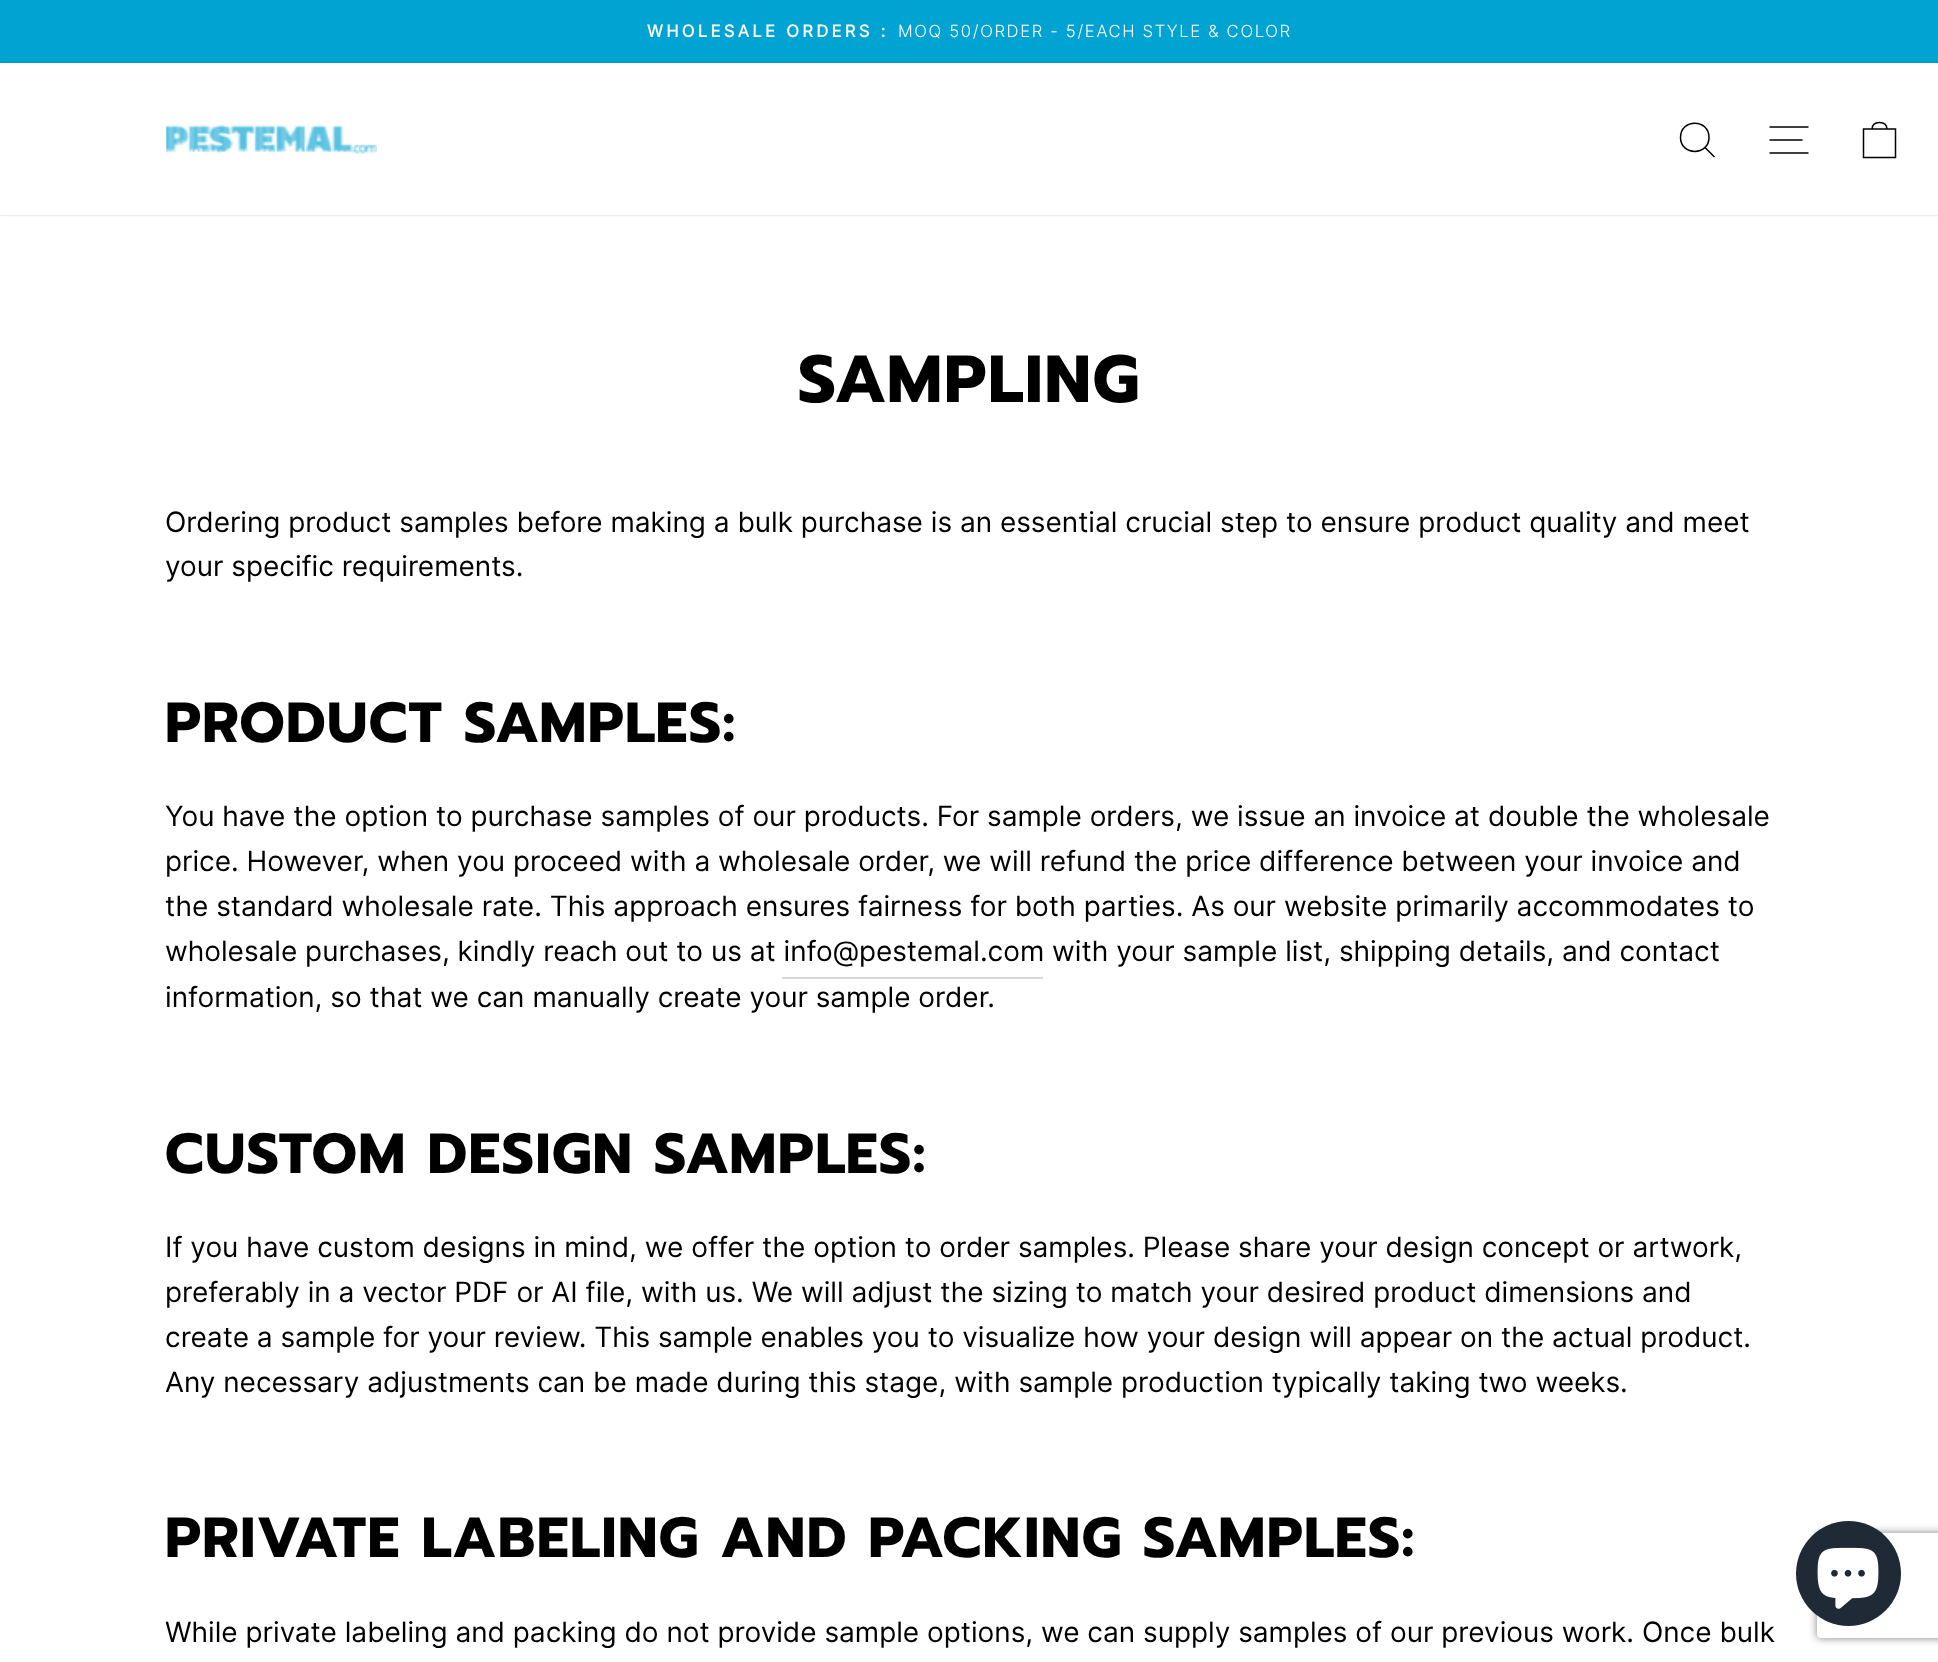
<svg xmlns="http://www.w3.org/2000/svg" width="1938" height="1662">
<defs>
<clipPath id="clip1"><path d="M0 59h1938v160h-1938zm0 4h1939v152h-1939z" clip-rule="evenodd"/></clipPath>
<clipPath id="clip2"><path d="M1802 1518h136v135h-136zm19 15h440c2 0 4 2 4 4v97c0 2-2 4-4 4h-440c-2 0-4-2-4-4v-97c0-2 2-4 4-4z" clip-rule="evenodd"/></clipPath>
</defs>
<rect width="100%" height="100%" fill="#fff"/>
<rect width="1938" height="63" fill="#00a3d2"/>
<text x="647" y="37" style="font-family:Inter;font-size:16.7px;font-weight:bold;letter-spacing:3.3px;fill:#fff">WHOLESALE ORDERS :</text>
<text x="898" y="37" style="font-family:Inter;font-size:16.7px;font-weight:300;letter-spacing:1.65px;fill:#fff">MOQ 50/ORDER - 5/EACH STYLE &amp; COLOR</text>
<g clip-path="url(#clip1)">
<rect y="63" width="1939" height="152" fill="#00000033" filter="blur(1px)"/>
</g>
<image x="166" y="125" width="211" height="29" href="media/1.png"/>
<path d="M1709 137.5c0 18.5-28.5 18.5-28.5 0c0-19 28.5-19 28.5 0zm5.5 19.5l-9.5-9.5" fill="none" stroke="#000" stroke-width="1.5"/>
<path d="M1769.5 127h39m-39 13h33m-33 13h39" fill="none" stroke="#000" stroke-width="1.5"/>
<path d="M1863.5 129h32v28.5h-32zm8.5 .5c0-5.5 3.5-7 7.5-7c4 0 7.5 1.5 7.5 7" fill="none" stroke="#000" stroke-width="1.5"/>
<text x="798" y="402" style="font-family:Prompt;font-size:66.5px;font-weight:bold;letter-spacing:1.75px;fill:#000">SAMPLING</text>
<text x="165" y="532" style="font-family:Inter;font-size:28px;fill:#000">Ordering product samples before making a bulk purchase is an essential crucial step to ensure product quality and meet</text>
<text x="165" y="576" style="font-family:Inter;font-size:28px;fill:#000">your specific requirements.</text>
<text x="165" y="742" style="font-family:Prompt;font-size:56.5px;font-weight:bold;letter-spacing:1.4px;fill:#000">PRODUCT SAMPLES:</text>
<text x="165" y="826" style="font-family:Inter;font-size:28px;fill:#000">You have the option to purchase samples of our products. For sample orders, we issue an invoice at double the wholesale</text>
<text x="165" y="871" style="font-family:Inter;font-size:28px;fill:#000">price. However, when you proceed with a wholesale order, we will refund the price difference between your invoice and</text>
<text x="165" y="916" style="font-family:Inter;font-size:28px;fill:#000">the standard wholesale rate. This approach ensures fairness for both parties. As our website primarily accommodates to</text>
<text x="165" y="961" style="font-family:Inter;font-size:28px;fill:#000">wholesale purchases, kindly reach out to us at info@pestemal.com</text>
<text x="1052" y="961" style="font-family:Inter;font-size:28px;fill:#000">with your sample list, shipping details, and contact</text>
<rect x="782" y="977" width="261" height="2" fill="#d9d9d9"/>
<text x="165" y="1007" style="font-family:Inter;font-size:28px;fill:#000">information, so that we can manually create your sample order.</text>
<text x="165" y="1173" style="font-family:Prompt;font-size:56.5px;font-weight:bold;letter-spacing:1.4px;fill:#000">CUSTOM DESIGN SAMPLES:</text>
<text x="165" y="1257" style="font-family:Inter;font-size:28px;fill:#000">If you have custom designs in mind, we offer the option to order samples. Please share your design concept or artwork,</text>
<text x="165" y="1302" style="font-family:Inter;font-size:28px;fill:#000">preferably in a vector PDF or AI file, with us. We will adjust the sizing to match your desired product dimensions and</text>
<text x="165" y="1347" style="font-family:Inter;font-size:28px;fill:#000">create a sample for your review. This sample enables you to visualize how your design will appear on the actual product.</text>
<text x="165" y="1392" style="font-family:Inter;font-size:28px;fill:#000">Any necessary adjustments can be made during this stage, with sample production typically taking two weeks.</text>
<text x="165" y="1557" style="font-family:Prompt;font-size:56.5px;font-weight:bold;letter-spacing:1.4px;fill:#000">PRIVATE LABELING AND PACKING SAMPLES:</text>
<text x="165" y="1642" style="font-family:Inter;font-size:28px;fill:#000">While private labeling and packing do not provide sample options, we can supply samples of our previous work. Once bulk</text>
<g clip-path="url(#clip2)">
<rect x="1817" y="1533" width="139" height="105" rx="4" fill="#808080" filter="blur(4.5px)"/>
</g>
<circle cx="1848.5" cy="1573.5" r="52.5" fill="#202a36"/>
<image x="1817" y="1547" width="62" height="62" href="media/2.png"/>
</svg>
